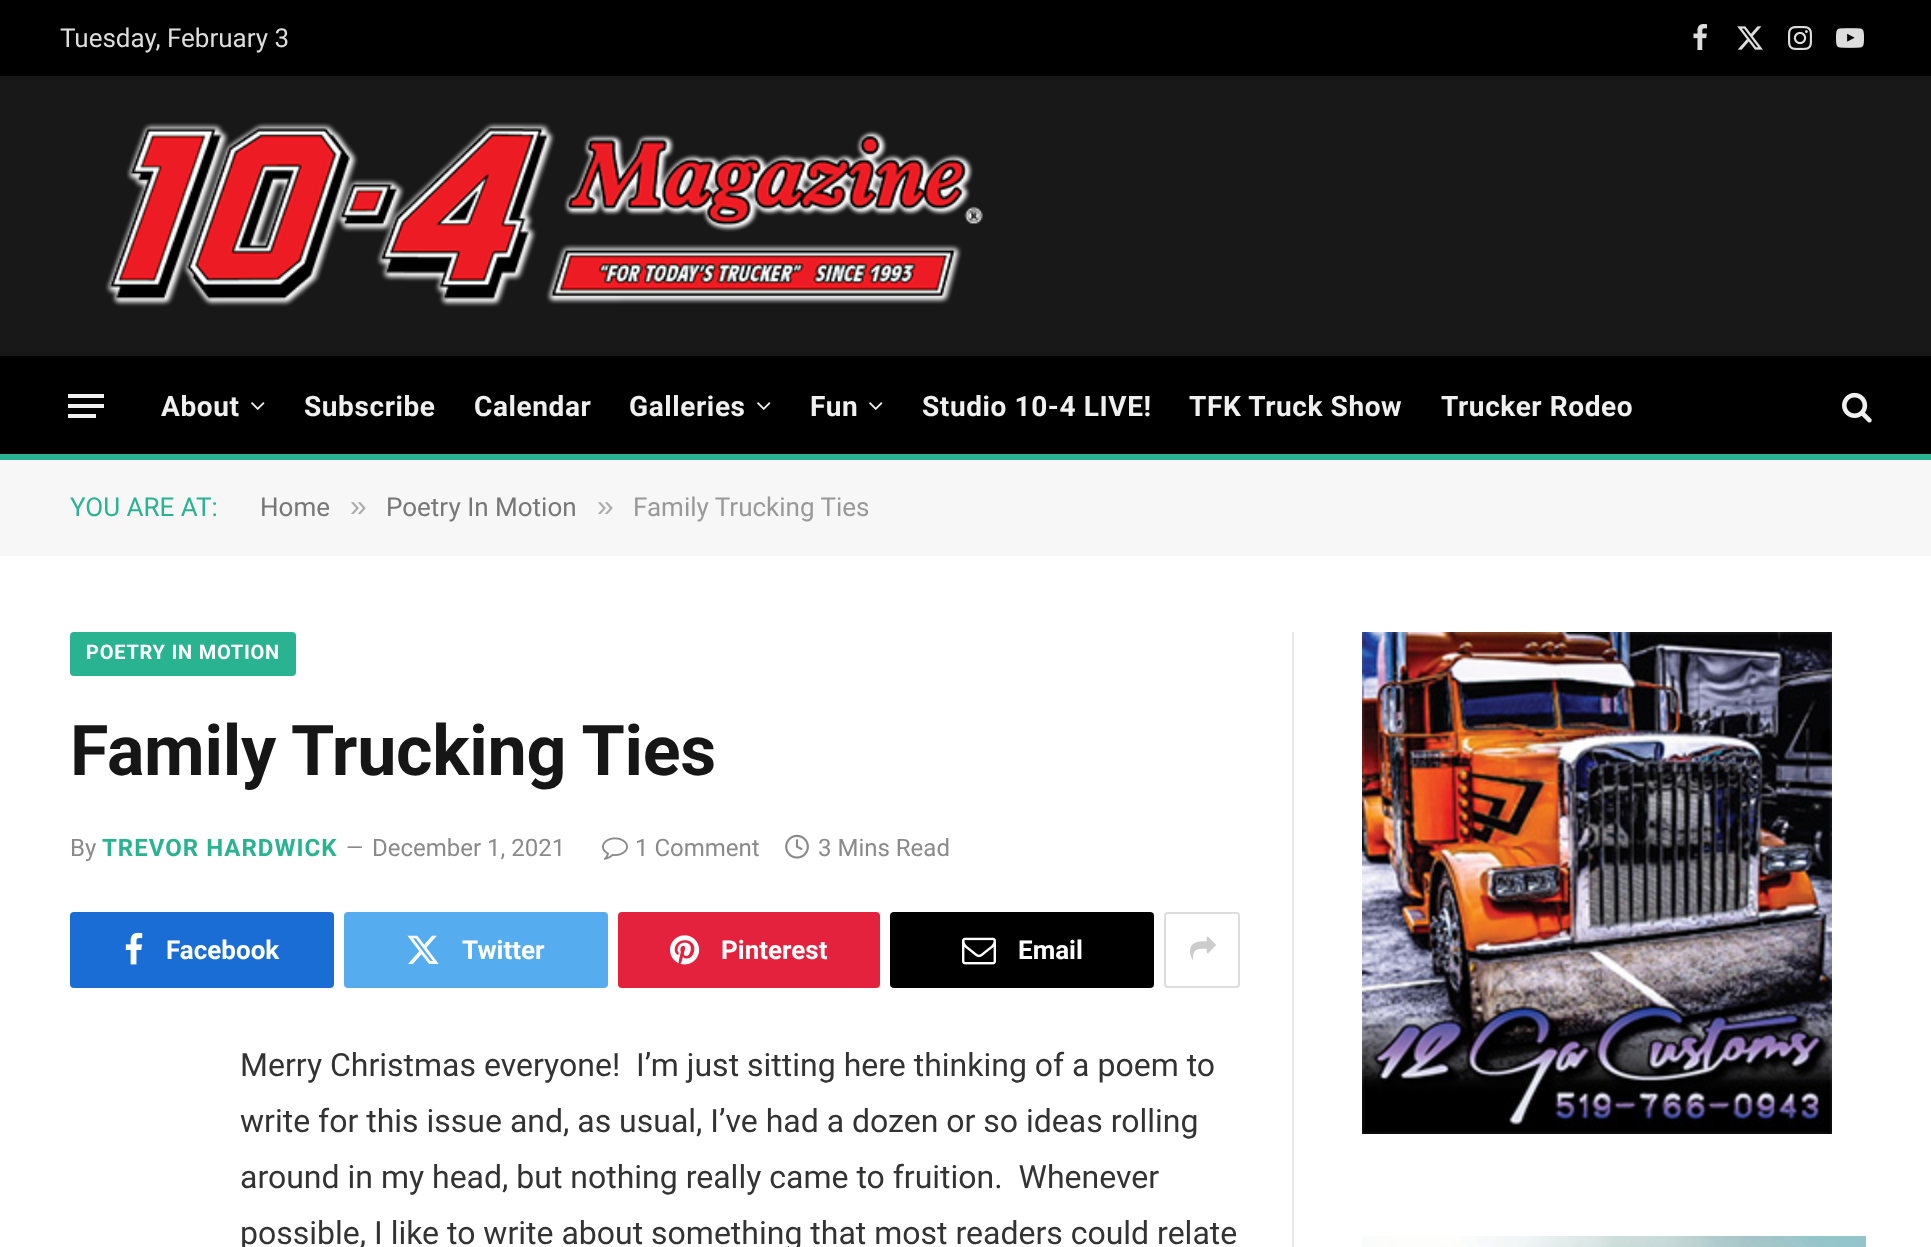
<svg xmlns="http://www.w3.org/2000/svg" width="1931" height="1247">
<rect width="100%" height="100%" fill="#fff"/>
<rect width="1931" height="76" fill="#000"/>
<text x="60" y="47" style="font-family:Roboto;font-size:26px;fill:#ddd">Tuesday, February 3</text>
<image x="1693" y="24" width="14" height="26" href="media/1.png"/>
<image x="1737" y="26" width="26" height="24" href="media/2.png"/>
<image x="1788" y="26" width="24" height="24" href="media/3.png"/>
<image x="1836" y="28" width="28" height="20" href="media/4.png"/>
<rect y="76" width="1931" height="280" fill="#181818"/>
<image x="105" y="122" width="878" height="185" href="media/5.png"/>
<rect y="356" width="1931" height="98" fill="#000"/>
<rect y="454" width="1931" height="6" fill="#2ab391"/>
<rect x="68" y="414" width="28" height="4" fill="#f0f0f0"/>
<rect x="68" y="394" width="36" height="4" fill="#f0f0f0"/>
<rect x="68" y="404" width="36" height="4" fill="#f0f0f0"/>
<text x="161" y="416" style="font-family:Roboto;font-size:28px;font-weight:bold;letter-spacing:0.6px;fill:#f0f0f0">About</text>
<image x="251" y="402" width="14" height="8" href="media/6.png"/>
<text x="304" y="416" style="font-family:Roboto;font-size:28px;font-weight:bold;letter-spacing:0.6px;fill:#f0f0f0">Subscribe</text>
<text x="474" y="416" style="font-family:Roboto;font-size:28px;font-weight:bold;letter-spacing:0.6px;fill:#f0f0f0">Calendar</text>
<text x="629" y="416" style="font-family:Roboto;font-size:28px;font-weight:bold;letter-spacing:0.6px;fill:#f0f0f0">Galleries</text>
<image x="757" y="402" width="14" height="8" href="media/6.png"/>
<text x="810" y="416" style="font-family:Roboto;font-size:28px;font-weight:bold;letter-spacing:0.6px;fill:#f0f0f0">Fun</text>
<image x="869" y="402" width="14" height="8" href="media/6.png"/>
<text x="922" y="416" style="font-family:Roboto;font-size:28px;font-weight:bold;letter-spacing:0.6px;fill:#f0f0f0">Studio 10-4 LIVE!</text>
<text x="1189" y="416" style="font-family:Roboto;font-size:28px;font-weight:bold;letter-spacing:0.6px;fill:#f0f0f0">TFK Truck Show</text>
<text x="1441" y="416" style="font-family:Roboto;font-size:28px;font-weight:bold;letter-spacing:0.6px;fill:#f0f0f0">Trucker Rodeo</text>
<image x="1842" y="392" width="30" height="31" href="media/7.png"/>
<rect y="460" width="1931" height="96" fill="#f7f7f7"/>
<text x="70" y="516" style="font-family:Roboto;font-size:26px;fill:#2ab391">YOU ARE AT:</text>
<text x="260" y="516" style="font-family:Roboto;font-size:26px;fill:#777">Home</text>
<text x="350" y="516" style="font-family:Liberation Sans;font-size:30px;fill:#acacac">»</text>
<text x="386" y="516" style="font-family:Roboto;font-size:26px;fill:#777">Poetry In Motion</text>
<text x="597" y="516" style="font-family:Liberation Sans;font-size:30px;fill:#acacac">»</text>
<text x="633" y="516" style="font-family:Roboto;font-size:26px;fill:#999">Family Trucking Ties</text>
<rect x="70" y="632" width="226" height="44" rx="4" fill="#2ab391"/>
<text x="86" y="659" style="font-family:Roboto;font-size:20px;font-weight:bold;letter-spacing:0.75px;fill:#fff">POETRY IN MOTION</text>
<text x="70" y="775" style="font-family:Roboto;font-size:70px;font-weight:bold;letter-spacing:-0.3px;fill:#161616">Family Trucking Ties</text>
<text x="70" y="856" style="font-family:Roboto;font-size:24px;fill:#8a8a8a">By</text>
<text x="102" y="856" style="font-family:Roboto;font-size:24px;font-weight:bold;letter-spacing:1px;fill:#2ab391">TREVOR HARDWICK</text>
<text x="346" y="855" style="font-family:Roboto;font-size:22px;fill:#8a8a8a">—</text>
<text x="372" y="856" style="font-family:Roboto;font-size:24px;fill:#8a8a8a">December 1, 2021</text>
<image x="602" y="837" width="26" height="23" href="media/8.png"/>
<text x="635" y="856" style="font-family:Roboto;font-size:24px;fill:#8a8a8a">1 Comment</text>
<image x="785" y="834" width="24" height="25" href="media/9.png"/>
<text x="818" y="856" style="font-family:Roboto;font-size:24px;fill:#8a8a8a">3 Mins Read</text>
<rect x="70" y="912" width="264" height="76" rx="4" fill="#1a6dd4"/>
<image x="125" y="932" width="18" height="33" href="media/10.png"/>
<text x="166" y="959" style="font-family:Roboto;font-size:26px;font-weight:bold;fill:#fff">Facebook</text>
<rect x="344" y="912" width="264" height="76" rx="4" fill="#55acef"/>
<image x="407" y="935" width="32" height="29" href="media/11.png"/>
<text x="462" y="959" style="font-family:Roboto;font-size:26px;font-weight:bold;fill:#fff">Twitter</text>
<rect x="618" y="912" width="262" height="76" rx="4" fill="#e4223e"/>
<image x="670" y="935" width="30" height="30" href="media/12.png"/>
<text x="721" y="959" style="font-family:Roboto;font-size:26px;font-weight:bold;fill:#fff">Pinterest</text>
<rect x="890" y="912" width="264" height="76" rx="4" fill="#000"/>
<image x="962" y="937" width="34" height="28" href="media/13.png"/>
<text x="1018" y="959" style="font-family:Roboto;font-size:26px;font-weight:bold;fill:#fff">Email</text>
<rect x="1165" y="913" width="74" height="74" rx="3" fill="none" stroke="#ddd" stroke-width="2"/>
<image x="1190" y="936" width="26" height="24" href="media/14.png"/>
<text x="240" y="1076" style="font-family:Roboto;font-size:32px;fill:#333" xml:space="preserve">Merry Christmas everyone!  I’m just sitting here thinking of a poem to</text>
<text x="240" y="1132" style="font-family:Roboto;font-size:32px;fill:#333">write for this issue and, as usual, I’ve had a dozen or so ideas rolling</text>
<text x="240" y="1188" style="font-family:Roboto;font-size:32px;fill:#333" xml:space="preserve">around in my head, but nothing really came to fruition.  Whenever</text>
<text x="240" y="1244" style="font-family:Roboto;font-size:32px;fill:#333">possible, I like to write about something that most readers could relate</text>
<rect x="1292" y="632" width="2" height="615" fill="#e8e8e8"/>
<image x="1362" y="632" width="470" height="502" href="media/15.png"/>
<image x="1362" y="1236" width="504" height="11" href="media/16.png"/>
</svg>
